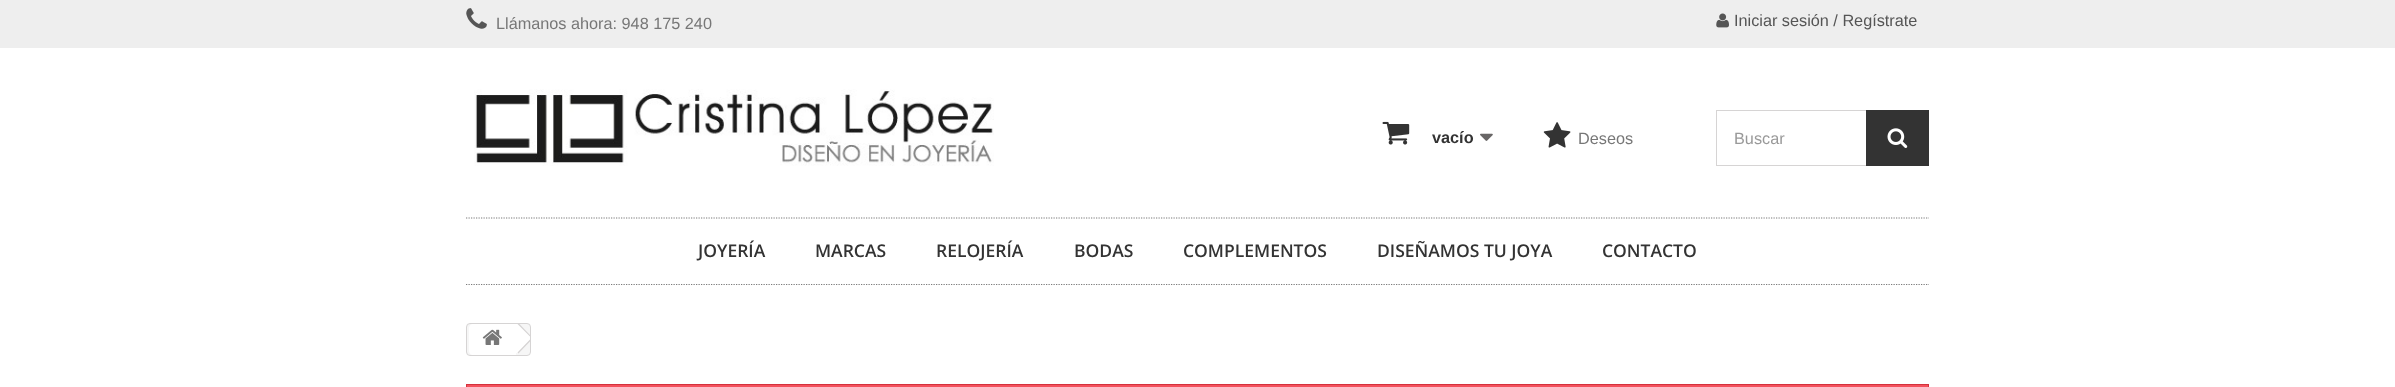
<svg xmlns="http://www.w3.org/2000/svg" width="2395" height="387">
<rect width="100%" height="100%" fill="#fff"/>
<rect width="2395" height="48" fill="#eee"/>
<image x="466" y="8" width="21" height="21" href="media/1.png"/>
<text x="496" y="29" style="font-family:Liberation Sans;font-size:16.25px;fill:#777">Llámanos ahora: 948 175 240</text>
<image x="1716" y="13" width="13" height="15" href="media/2.png"/>
<text x="1734" y="26" style="font-family:Liberation Sans;font-size:16.25px;fill:#555">Iniciar sesión / Regístrate</text>
<image x="474" y="89" width="520" height="77" href="media/3.png"/>
<image x="1382" y="121" width="28" height="24" href="media/4.png"/>
<text x="1432" y="143" style="font-family:Liberation Sans;font-size:16.25px;font-weight:bold;fill:#333">vacío</text>
<image x="1480" y="133" width="13" height="8" href="media/5.png"/>
<image x="1543" y="122" width="28" height="26" href="media/6.png"/>
<text x="1578" y="144" style="font-family:Liberation Sans;font-size:16.25px;fill:#777">Deseos</text>
<rect x="1716.5" y="110.5" width="212" height="55" fill="none" stroke="#d6d4d4"/>
<text x="1734" y="144" style="font-family:Liberation Sans;font-size:16.25px;fill:#999">Buscar</text>
<rect x="1866" y="110" width="63" height="56" fill="#333"/>
<image x="1887" y="128" width="21" height="20" href="media/7.png"/>
<path d="M466 218h1463" fill="none" stroke="#7b7b7b" stroke-width="1.2" stroke-dasharray="1.25 1.25"/>
<path d="M466 284.5h1463" fill="none" stroke="#7b7b7b" stroke-width="1.2" stroke-dasharray="1.25 1.25"/>
<text x="698" y="257" style="font-family:Open Sans;font-size:17.5px;font-weight:600;fill:#333">JOYERÍA</text>
<text x="815" y="257" style="font-family:Open Sans;font-size:17.5px;font-weight:600;fill:#333">MARCAS</text>
<text x="936" y="257" style="font-family:Open Sans;font-size:17.5px;font-weight:600;fill:#333">RELOJERÍA</text>
<text x="1074" y="257" style="font-family:Open Sans;font-size:17.5px;font-weight:600;fill:#333">BODAS</text>
<text x="1183" y="257" style="font-family:Open Sans;font-size:17.5px;font-weight:600;fill:#333">COMPLEMENTOS</text>
<text x="1377" y="257" style="font-family:Open Sans;font-size:17.5px;font-weight:600;fill:#333">DISEÑAMOS TU JOYA</text>
<text x="1602" y="257" style="font-family:Open Sans;font-size:17.5px;font-weight:600;fill:#333">CONTACTO</text>
<rect x="466.5" y="323.5" width="64" height="32" rx="3.5" fill="#f6f6f6" stroke="#d6d4d4"/>
<path d="M473 324h43v31h-43c-2 0-4-2-4-4v-23c0-2 2-4 4-4z" fill="#fff"/>
<image x="482" y="329" width="20" height="16" href="media/8.png"/>
<path d="M519.5 324h-4l-12 12.5c-1 1-1 2.5 0 3.5l12 12.5c1 1 3 1 4 0l10.5-11v-6.5z" fill="#fff"/>
<path d="M530 336.5l-12.5-12.5h2l10.5 11zm0 3v2l-11.5 12l-1-1z" fill="#d6d4d4"/>
<rect x="466.5" y="384.5" width="1462" height="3" fill="#f3515c" stroke="#d4323d"/>
</svg>
